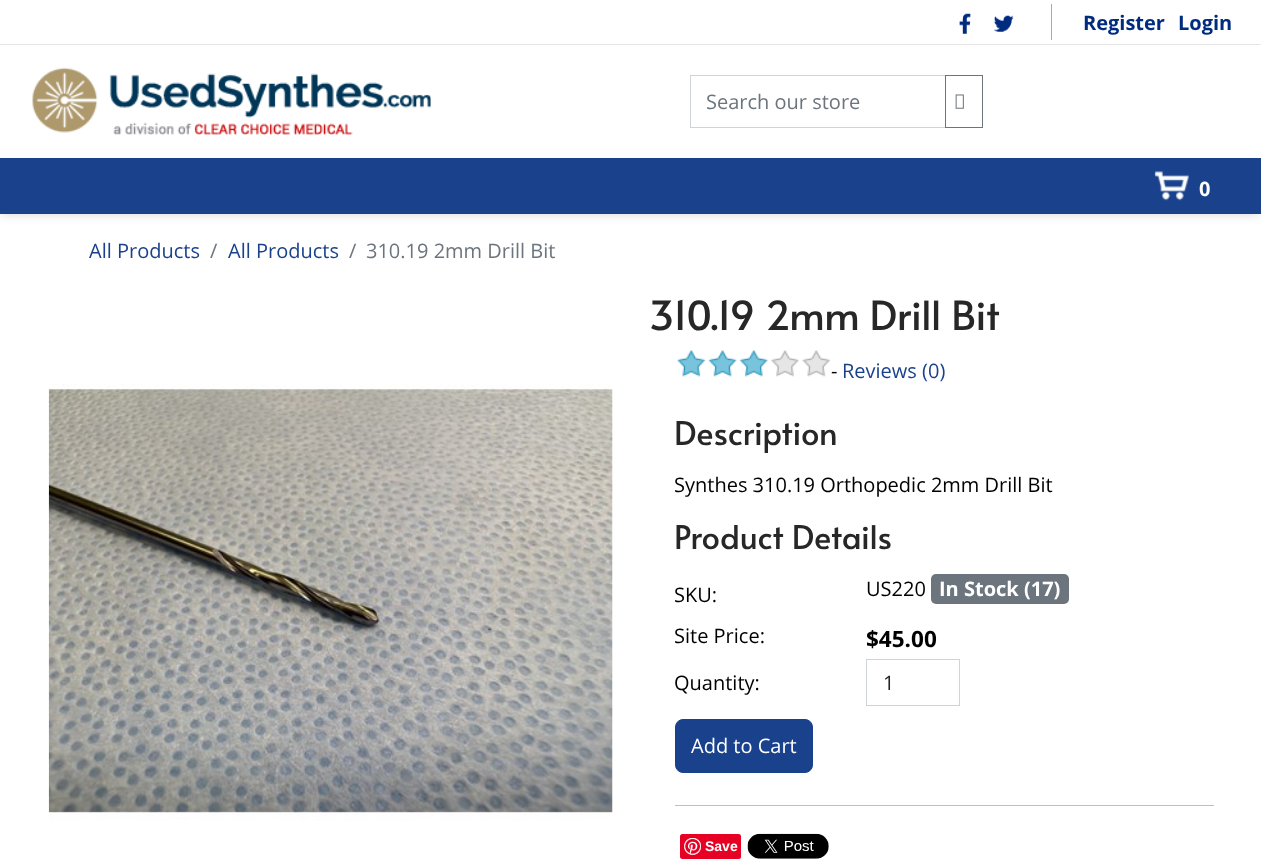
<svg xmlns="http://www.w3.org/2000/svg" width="1261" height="865">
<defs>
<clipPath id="clip1"><path d="M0 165h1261v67h-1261zm-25-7h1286v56h-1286z" clip-rule="evenodd"/></clipPath>
</defs>
<rect width="100%" height="100%" fill="#fff"/>
<rect y="44" width="1261" height="1" fill="#e6e6e6"/>
<image x="959" y="13" width="12" height="21" href="media/1.png"/>
<image x="994" y="15" width="20" height="17" href="media/2.png"/>
<rect x="1051" y="4" width="1" height="36" fill="#99abcc"/>
<text x="1083" y="30" style="font-family:Open Sans;font-size:20px;font-weight:bold;fill:#002c80">Register</text>
<text x="1178" y="30" style="font-family:Open Sans;font-size:20px;font-weight:bold;fill:#002c80">Login</text>
<image x="32" y="67" width="399" height="68" href="media/3.png"/>
<rect x="690.5" y="75.5" width="255" height="52" fill="none" stroke="#ced4da"/>
<text x="706" y="109" style="font-family:Open Sans;font-size:20px;fill:#6c757d">Search our store</text>
<rect x="945.5" y="75.5" width="37" height="52" fill="none" stroke="#6c757d"/>
<image x="955" y="94" width="9" height="15" href="media/4.png"/>
<g clip-path="url(#clip1)">
<rect x="1" y="184" width="1259" height="29" fill="#00000033" filter="blur(6px)"/>
</g>
<rect y="158" width="1261" height="56" fill="#002c80e6"/>
<image x="1154" y="171" width="35" height="30" href="media/5.png"/>
<text x="1199" y="196" style="font-family:Open Sans;font-size:20px;font-weight:bold;fill:#fff">0</text>
<text x="89" y="258" style="font-family:Open Sans;font-size:20px;fill:#19418c">All Products</text>
<text x="210" y="258" style="font-family:Open Sans;font-size:20px;fill:#6c757d">/</text>
<text x="228" y="258" style="font-family:Open Sans;font-size:20px;fill:#19418c">All Products</text>
<text x="349" y="258" style="font-family:Open Sans;font-size:20px;fill:#6c757d">/</text>
<text x="366" y="258" style="font-family:Open Sans;font-size:20px;fill:#6c757d">310.19 2mm Drill Bit</text>
<image x="48" y="384" width="565" height="437" href="media/6.png"/>
<text x="649" y="330" style="font-family:Alata;font-size:40px;fill:#272727">310.19 2mm Drill Bit</text>
<image x="677" y="350" width="154" height="27" href="media/7.png"/>
<text x="831" y="378" style="font-family:Open Sans;font-size:20px;fill:#000">-</text>
<text x="842" y="378" style="font-family:Open Sans;font-size:20px;fill:#19418c">Reviews (0)</text>
<text x="674" y="445" style="font-family:Alata;font-size:32.5px;fill:#272727">Description</text>
<text x="674" y="492" style="font-family:Open Sans;font-size:20px;fill:#000">Synthes 310.19 Orthopedic 2mm Drill Bit</text>
<text x="674" y="549" style="font-family:Alata;font-size:32.5px;fill:#272727">Product Details</text>
<text x="674" y="602" style="font-family:Open Sans;font-size:20px;fill:#000">SKU:</text>
<text x="866" y="596" style="font-family:Open Sans;font-size:20px;fill:#000">US220</text>
<rect x="931" y="574" width="138" height="30" rx="5" fill="#6c757d"/>
<text x="939" y="596" style="font-family:Open Sans;font-size:20px;font-weight:bold;fill:#fff">In Stock (17)</text>
<text x="674" y="643" style="font-family:Open Sans;font-size:20px;fill:#000">Site Price:</text>
<text x="866" y="647" style="font-family:Open Sans;font-size:22.5px;font-weight:bold;fill:#000">$45.00</text>
<text x="674" y="690" style="font-family:Open Sans;font-size:20px;fill:#000">Quantity:</text>
<rect x="866.5" y="659.5" width="93" height="46" fill="none" stroke="#ced4da"/>
<text x="883" y="690" style="font-family:Open Sans;font-size:20px;fill:#212529">1</text>
<rect x="675.5" y="719.5" width="137" height="53" rx="7.5" fill="#19418c" stroke="#19418c"/>
<text x="691" y="753" style="font-family:Open Sans;font-size:20px;fill:#fff">Add to Cart</text>
<rect x="675" y="805" width="539" height="1" fill="#bfbfbf"/>
<rect x="680" y="834" width="61" height="25" rx="2.5" fill="#e60023"/>
<image x="684" y="838" width="17" height="17" href="media/8.png"/>
<text x="705" y="851" style="font-family:Liberation Sans;font-size:14px;font-weight:bold;fill:#fff">Save</text>
<image x="747" y="833" width="82" height="26" href="media/9.png"/>
</svg>
